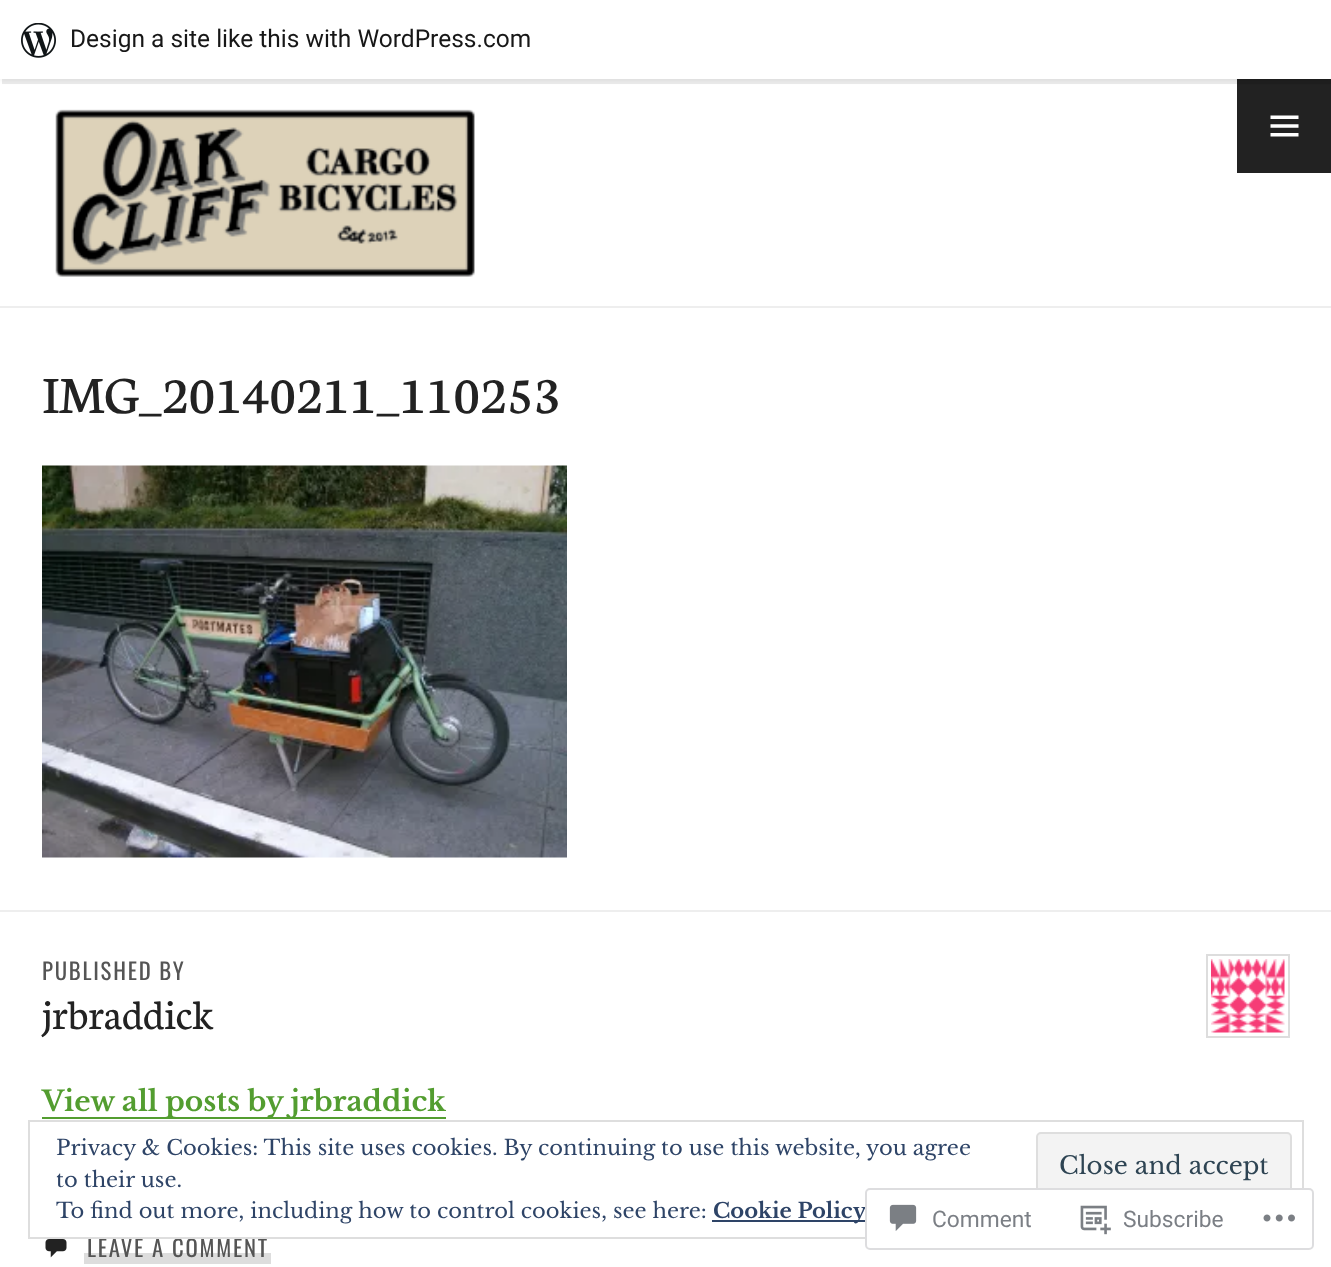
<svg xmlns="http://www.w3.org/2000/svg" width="1331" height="1267">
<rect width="100%" height="100%" fill="#fff"/>
<rect x="1237" y="79" width="94" height="94" fill="#222"/>
<rect y="2" width="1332" height="79" fill="#0000000d" filter="blur(2px)"/>
<path d="M2 79v5h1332v-79h-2v74z" fill="#00000014"/>
<rect width="1331" height="79" fill="#fff"/>
<image x="21" y="23" width="35" height="35" href="media/1.png"/>
<text x="70" y="47" style="font-family:Roboto;font-size:24.5px;fill:#171717">Design a site like this with WordPress.com</text>
<image x="1270" y="115" width="29" height="22" href="media/2.png"/>
<rect y="306" width="1331" height="2" fill="#eee"/>
<image x="55" y="109" width="420" height="168" href="media/3.png"/>
<text x="42" y="413" style="font-family:Neuton;font-size:56px;fill:#222">IMG_20140211_110253</text>
<image x="42" y="465" width="525" height="393" href="media/4.png"/>
<rect y="910" width="1331" height="2" fill="#eee"/>
<text x="42" y="980" style="font-family:Oswald;font-size:22.75px;letter-spacing:1.75px;fill:#555">PUBLISHED BY</text>
<text x="42" y="1029" style="font-family:Neuton;font-size:44px;fill:#222">jrbraddick</text>
<rect x="1207" y="955" width="82" height="82" fill="none" stroke="#ddd" stroke-width="2"/>
<image x="1211" y="959" width="74" height="74" href="media/5.png"/>
<rect x="42" y="1117" width="404" height="2" fill="#539d30"/>
<text x="42" y="1111" style="font-family:Libre Baskerville;font-size:28px;font-weight:bold;fill:#539d30">View all posts by jrbraddick</text>
<image x="45" y="1239" width="22" height="19" href="media/6.png"/>
<rect x="84" y="1253" width="187" height="11" fill="#ddd"/>
<text x="87" y="1257" style="font-family:Oswald;font-size:22.75px;letter-spacing:1.75px;fill:#555">LEAVE A COMMENT</text>
<rect x="29" y="1121" width="1274" height="117" fill="none" stroke="#dedede" stroke-width="2"/>
<text x="56" y="1155" style="font-family:Libre Baskerville;font-size:21px;fill:#2e4467">Privacy &amp; Cookies: This site uses cookies. By continuing to use this website, you agree</text>
<text x="56" y="1187" style="font-family:Libre Baskerville;font-size:21px;fill:#2e4467">to their use.</text>
<rect x="1037" y="1133" width="254" height="67" rx="4" fill="#f3f3f3" stroke="#dedede" stroke-width="2"/>
<text x="1059" y="1174" style="font-family:Libre Baskerville;font-size:24.5px;fill:#2e4453">Close and accept</text>
<text x="56" y="1218" style="font-family:Libre Baskerville;font-size:21px;fill:#2e4467">To find out more, including how to control cookies, see here:</text>
<rect x="712" y="1220" width="154" height="2" fill="#2e4467"/>
<text x="713" y="1218" style="font-family:Libre Baskerville;font-size:21px;font-weight:bold;fill:#2e4467">Cookie Policy</text>
<rect x="865" y="1188" width="449" height="62" rx="5" fill="#fffffffa"/>
<rect x="866" y="1189" width="447" height="60" rx="4" fill="none" stroke="#dcdcdefa" stroke-width="2"/>
<image x="889" y="1204" width="28" height="27" href="media/7.png"/>
<text x="932" y="1227" style="font-family:Roboto;font-size:22.75px;fill:#7b7f85">Comment</text>
<image x="1080" y="1205" width="31" height="30" href="media/8.png"/>
<text x="1123" y="1227" style="font-family:Roboto;font-size:22.75px;fill:#7b7f85">Subscribe</text>
<image x="1263" y="1214" width="32" height="8" href="media/9.png"/>
</svg>
